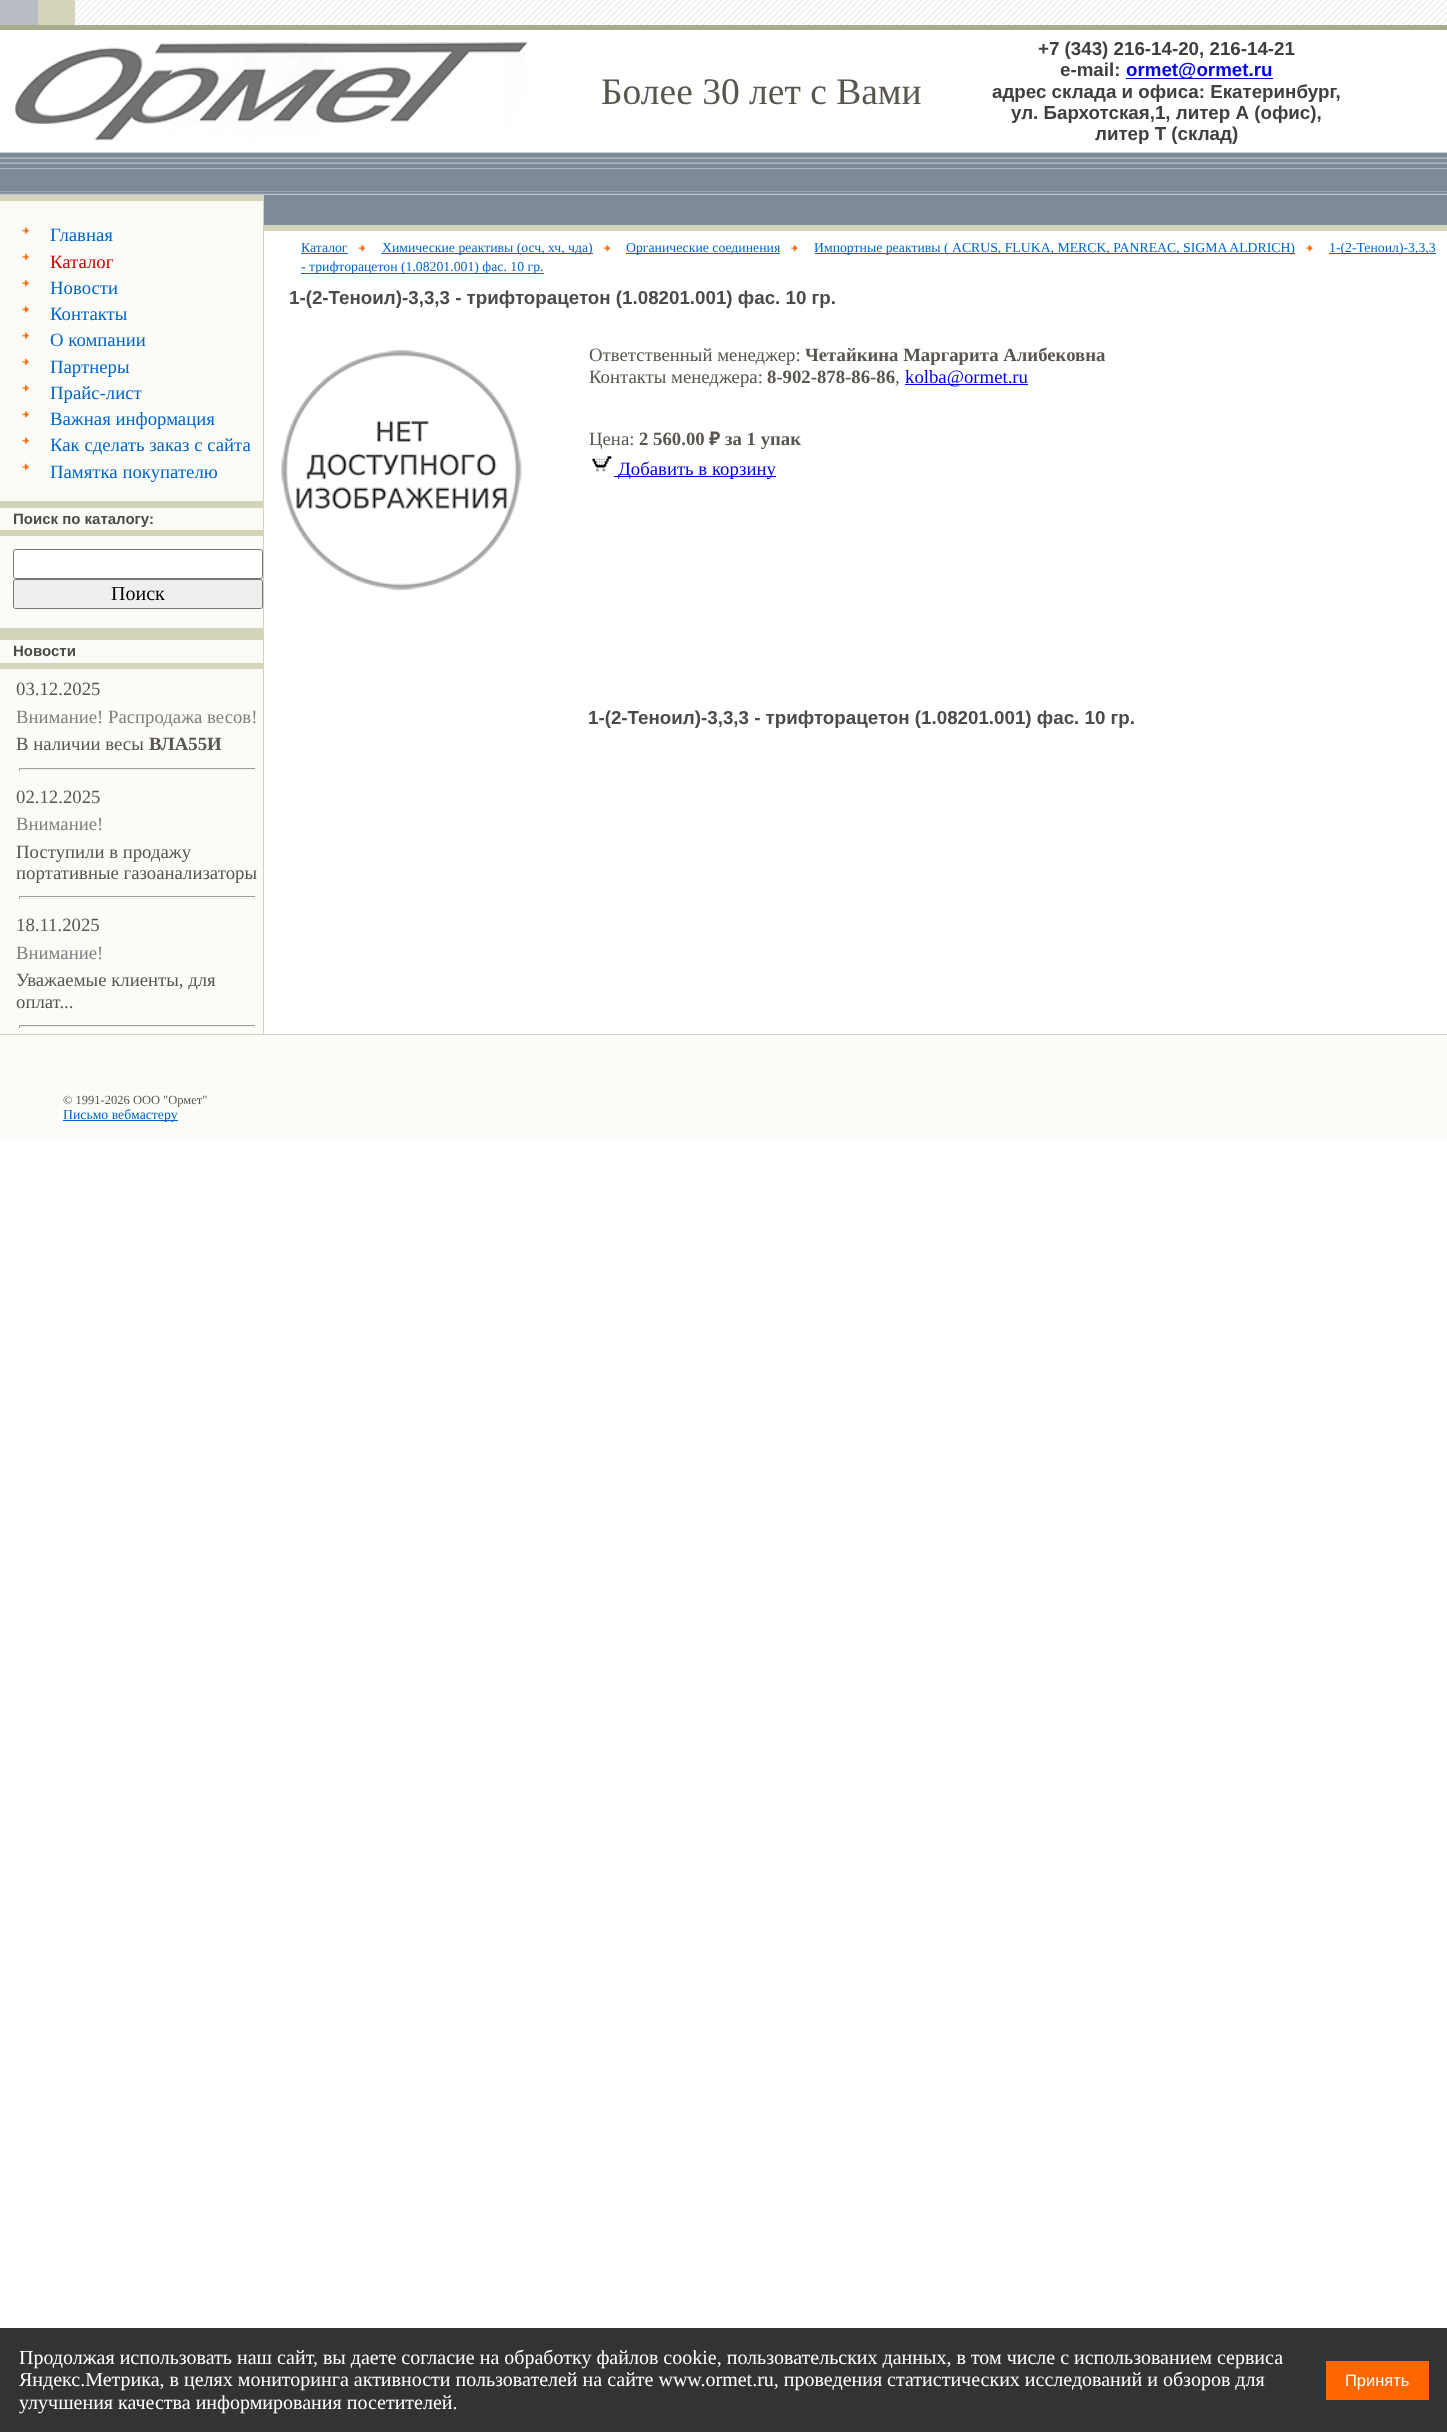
<svg xmlns="http://www.w3.org/2000/svg" width="1447" height="2432">
<rect width="100%" height="100%" fill="#fff"/>
<rect width="38" height="25" fill="#b8bcc5"/>
<rect x="38" width="37" height="25" fill="#d4d4ba"/>
<image x="75" y="0" width="1372" height="25" href="media/1.png"/>
<rect y="25" width="1447" height="5" fill="#a7ac8f"/>
<image x="14" y="41" width="514" height="100" href="media/2.png"/>
<text x="601" y="104" style="font-family:Liberation Serif;font-size:37.5px;fill:#59554f">Более 30 лет с Вами</text>
<text x="1038" y="55" style="font-family:Liberation Sans;font-size:18.75px;font-weight:bold;fill:#3f3f3f">+7 (343) 216-14-20, 216-14-21</text>
<text x="1060" y="76" style="font-family:Liberation Sans;font-size:18.75px;font-weight:bold;fill:#3f3f3f">e-mail:</text>
<rect x="1126" y="78" width="147" height="1" fill="#00e"/>
<text x="1126" y="76" style="font-family:Liberation Sans;font-size:18.75px;font-weight:bold;fill:#00e">ormet@ormet.ru</text>
<text x="992" y="98" style="font-family:Liberation Sans;font-size:18.75px;font-weight:bold;fill:#3f3f3f">адрес склада и офиса: Екатеринбург,</text>
<text x="1011" y="119" style="font-family:Liberation Sans;font-size:18.75px;font-weight:bold;fill:#3f3f3f">ул. Бархотская,1, литер А (офис),</text>
<text x="1095" y="140" style="font-family:Liberation Sans;font-size:18.75px;font-weight:bold;fill:#3f3f3f">литер Т (склад)</text>
<image x="0" y="152" width="1447" height="17" href="media/3.png"/>
<rect y="169" width="1447" height="22" fill="#7e8a97"/>
<image x="0" y="191" width="1447" height="4" href="media/4.png"/>
<rect y="201" width="263" height="833" fill="#fbfbf8"/>
<rect x="263" y="195" width="1" height="839" fill="#d4d4ba"/>
<rect y="195" width="263" height="6" fill="#d4d4ba"/>
<image x="22" y="227" width="7" height="7" href="media/5.png"/>
<text x="50" y="241" style="font-family:Liberation Serif;font-size:18.75px;fill:#06c">Главная</text>
<image x="22" y="253" width="7" height="8" href="media/6.png"/>
<text x="50" y="268" style="font-family:Liberation Serif;font-size:18.75px;fill:#c00">Каталог</text>
<image x="22" y="279" width="7" height="8" href="media/7.png"/>
<text x="50" y="294" style="font-family:Liberation Serif;font-size:18.75px;fill:#06c">Новости</text>
<image x="22" y="306" width="7" height="7" href="media/8.png"/>
<text x="50" y="320" style="font-family:Liberation Serif;font-size:18.75px;fill:#06c">Контакты</text>
<image x="22" y="332" width="7" height="7" href="media/5.png"/>
<text x="50" y="346" style="font-family:Liberation Serif;font-size:18.75px;fill:#06c">О компании</text>
<image x="22" y="358" width="7" height="8" href="media/6.png"/>
<text x="50" y="373" style="font-family:Liberation Serif;font-size:18.75px;fill:#06c">Партнеры</text>
<image x="22" y="384" width="7" height="8" href="media/7.png"/>
<text x="50" y="399" style="font-family:Liberation Serif;font-size:18.75px;fill:#06c">Прайс-лист</text>
<image x="22" y="411" width="7" height="7" href="media/8.png"/>
<text x="50" y="425" style="font-family:Liberation Serif;font-size:18.75px;fill:#06c">Важная информация</text>
<image x="22" y="437" width="7" height="7" href="media/5.png"/>
<text x="50" y="451" style="font-family:Liberation Serif;font-size:18.75px;fill:#06c">Как сделать заказ с сайта</text>
<image x="22" y="463" width="7" height="8" href="media/6.png"/>
<text x="50" y="478" style="font-family:Liberation Serif;font-size:18.75px;fill:#06c">Памятка покупателю</text>
<rect y="501" width="263" height="7" fill="#d4d4ba"/>
<text x="13" y="524" style="font-family:Liberation Sans;font-size:15px;font-weight:bold;fill:#4b4b4a">Поиск по каталогу:</text>
<rect y="530" width="263" height="6" fill="#d4d4ba"/>
<rect x="13.5" y="549.5" width="249" height="29" rx="2" fill="#fff" stroke="#767676"/>
<rect x="13.5" y="579.5" width="249" height="29" rx="2" fill="#efefef" stroke="#767676"/>
<text x="111" y="600" style="font-family:Liberation Serif;font-size:20px;fill:#000">Поиск</text>
<rect y="628" width="263" height="12" fill="#d4d4ba"/>
<text x="13" y="656" style="font-family:Liberation Sans;font-size:15px;font-weight:bold;fill:#4b4b4a">Новости</text>
<rect y="663" width="263" height="6" fill="#d4d4ba"/>
<text x="16" y="695" style="font-family:Liberation Serif;font-size:18.75px;fill:#59554f">03.12.2025</text>
<text x="16" y="723" style="font-family:Liberation Serif;font-size:18.75px;fill:#808080">Внимание! Распродажа весов!</text>
<text x="16" y="750" style="font-family:Liberation Serif;font-size:18.75px;fill:#59554f">В наличии весы</text>
<text x="149" y="750" style="font-family:Liberation Serif;font-size:18.75px;font-weight:bold;fill:#59554f">ВЛА55И</text>
<rect x="19" y="768" width="237" height="1" fill="#9f9f9f"/>
<rect x="255" y="768" width="1" height="3" fill="#eee"/>
<rect x="19" y="769" width="237" height="1" fill="#eee"/>
<rect x="19" y="768" width="1" height="3" fill="#9f9f9f"/>
<text x="16" y="803" style="font-family:Liberation Serif;font-size:18.75px;fill:#59554f">02.12.2025</text>
<text x="16" y="830" style="font-family:Liberation Serif;font-size:18.75px;fill:#808080">Внимание!</text>
<text x="16" y="858" style="font-family:Liberation Serif;font-size:18.75px;fill:#59554f">Поступили в продажу</text>
<text x="16" y="879" style="font-family:Liberation Serif;font-size:18.75px;fill:#59554f">портативные газоанализаторы</text>
<rect x="19" y="896" width="237" height="1" fill="#9f9f9f"/>
<rect x="255" y="896" width="1" height="3" fill="#eee"/>
<rect x="19" y="898" width="237" height="1" fill="#eee"/>
<rect x="19" y="896" width="1" height="3" fill="#9f9f9f"/>
<text x="16" y="931" style="font-family:Liberation Serif;font-size:18.75px;fill:#59554f">18.11.2025</text>
<text x="16" y="959" style="font-family:Liberation Serif;font-size:18.75px;fill:#808080">Внимание!</text>
<text x="16" y="986" style="font-family:Liberation Serif;font-size:18.75px;fill:#59554f">Уважаемые клиенты, для</text>
<text x="16" y="1008" style="font-family:Liberation Serif;font-size:18.75px;fill:#59554f">оплат...</text>
<rect x="19" y="1025" width="237" height="1" fill="#9f9f9f"/>
<rect x="255" y="1025" width="1" height="3" fill="#eee"/>
<rect x="19" y="1026" width="237" height="1" fill="#eee"/>
<rect x="19" y="1025" width="1" height="3" fill="#9f9f9f"/>
<rect x="264" y="195" width="1183" height="30" fill="#7e8a97"/>
<rect x="264" y="225" width="1183" height="6" fill="#d4d4ba"/>
<text x="301" y="252" style="font-family:Liberation Serif;font-size:13.75px;fill:#06c">Каталог</text>
<rect x="301" y="253" width="47" height="1" fill="#06c"/>
<image x="358" y="244" width="8" height="8" href="media/9.png"/>
<rect x="381" y="253" width="212" height="1" fill="#06c"/>
<text x="382" y="252" style="font-family:Liberation Serif;font-size:13.75px;fill:#06c">Химические реактивы (осч, хч, чда)</text>
<image x="603" y="244" width="8" height="8" href="media/9.png"/>
<rect x="626" y="253" width="154" height="1" fill="#06c"/>
<text x="626" y="252" style="font-family:Liberation Serif;font-size:13.75px;fill:#06c">Органические соединения</text>
<image x="791" y="244" width="7" height="8" href="media/10.png"/>
<rect x="815" y="253" width="480" height="1" fill="#06c"/>
<text x="814" y="252" style="font-family:Liberation Serif;font-size:13.75px;fill:#06c">Импортные реактивы ( ACRUS, FLUKA, MERCK, PANREAC, SIGMA ALDRICH)</text>
<image x="1306" y="244" width="7" height="8" href="media/10.png"/>
<rect x="1329" y="253" width="107" height="1" fill="#06c"/>
<text x="1329" y="252" style="font-family:Liberation Serif;font-size:13.75px;fill:#06c">1-(2-Теноил)-3,3,3</text>
<rect x="301" y="273" width="243" height="1" fill="#06c"/>
<text x="301" y="271" style="font-family:Liberation Serif;font-size:13.75px;fill:#06c">- трифторацетон (1.08201.001) фас. 10 гр.</text>
<text x="289" y="304" style="font-family:Liberation Sans;font-size:18.75px;font-weight:bold;fill:#4b4b4a">1-(2-Теноил)-3,3,3 - трифторацетон (1.08201.001) фас. 10 гр.</text>
<image x="281" y="350" width="241" height="241" href="media/11.png"/>
<text x="589" y="361" style="font-family:Liberation Serif;font-size:18.75px;fill:#59554f">Ответственный менеджер:</text>
<text x="805" y="361" style="font-family:Liberation Serif;font-size:18.75px;font-weight:bold;fill:#59554f">Четайкина Маргарита Алибековна</text>
<text x="589" y="383" style="font-family:Liberation Serif;font-size:18.75px;fill:#59554f">Контакты менеджера:</text>
<text x="767" y="383" style="font-family:Liberation Serif;font-size:18.75px;font-weight:bold;fill:#59554f">8-902-878-86-86</text>
<text x="895" y="383" style="font-family:Liberation Serif;font-size:18.75px;fill:#59554f">,</text>
<rect x="905" y="384" width="123" height="1" fill="#00e"/>
<text x="905" y="383" style="font-family:Liberation Serif;font-size:18.75px;fill:#00e">kolba@ormet.ru</text>
<text x="589" y="445" style="font-family:Liberation Serif;font-size:18.75px;fill:#59554f">Цена:</text>
<text x="639" y="445" style="font-family:Liberation Serif;font-size:18.75px;font-weight:bold;fill:#59554f">2 560.00</text>
<text x="709" y="445" style="font-family:Noto Sans;font-size:18.75px;font-weight:bold;fill:#59554f">₽</text>
<text x="725" y="445" style="font-family:Liberation Serif;font-size:18.75px;font-weight:bold;fill:#59554f">за 1 упак</text>
<image x="592" y="456" width="20" height="16" href="media/12.png"/>
<rect x="614" y="476" width="162" height="1" fill="#00e"/>
<text x="618" y="475" style="font-family:Liberation Serif;font-size:18.75px;fill:#00e">Добавить в корзину</text>
<text x="588" y="724" style="font-family:Liberation Sans;font-size:18.75px;font-weight:bold;fill:#4b4b4a">1-(2-Теноил)-3,3,3 - трифторацетон (1.08201.001) фас. 10 гр.</text>
<rect y="1035" width="1447" height="105" fill="#fbfbf8"/>
<rect y="1034" width="1447" height="1" fill="#d4d4ba"/>
<text x="63" y="1104" style="font-family:Liberation Serif;font-size:12.5px;fill:#59554f">© 1991-2026 ООО "Ормет"</text>
<rect x="63" y="1120" width="115" height="1" fill="#06c"/>
<text x="63" y="1119" style="font-family:Liberation Serif;font-size:13.75px;fill:#06c">Письмо вебмастеру</text>
<rect y="2328" width="1447" height="104" fill="#333"/>
<text x="19" y="2364" style="font-family:Liberation Serif;font-size:20px;fill:#fff">Продолжая использовать наш сайт, вы даете согласие на обработку файлов cookie, пользовательских данных, в том числе с использованием сервиса</text>
<text x="19" y="2386" style="font-family:Liberation Serif;font-size:20px;fill:#fff">Яндекс.Метрика, в целях мониторинга активности пользователей на сайте www.ormet.ru, проведения статистических исследований и обзоров для</text>
<text x="19" y="2409" style="font-family:Liberation Serif;font-size:20px;fill:#fff">улучшения качества информирования посетителей.</text>
<rect x="1326" y="2361" width="103" height="39" fill="#f60"/>
<text x="1345" y="2386" style="font-family:Liberation Sans;font-size:16.5px;fill:#fff">Принять</text>
</svg>
